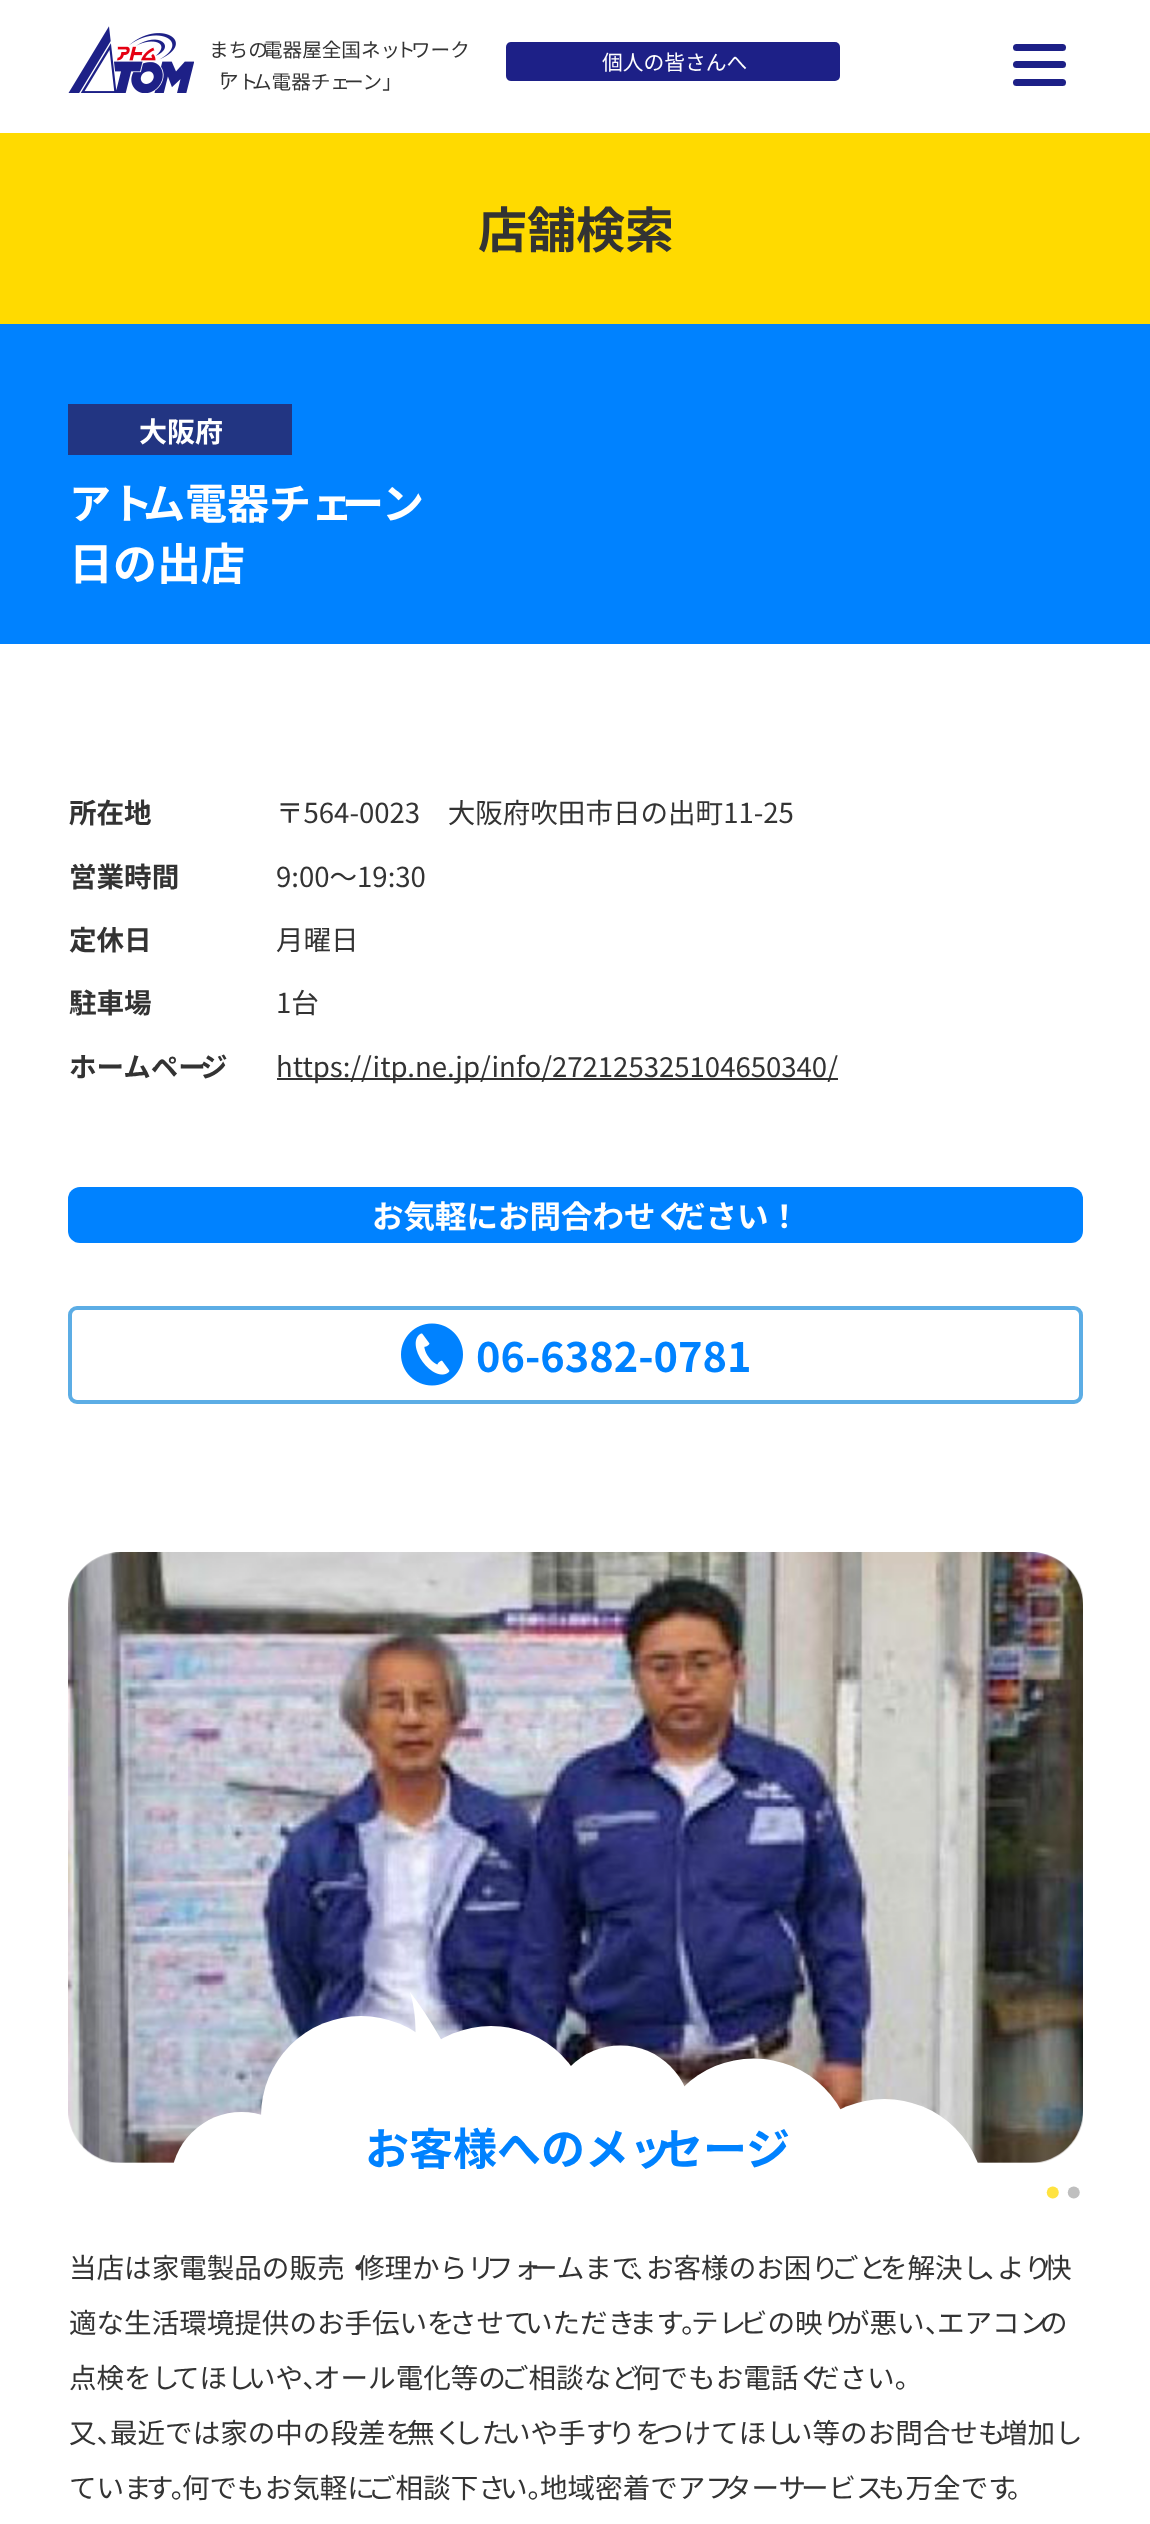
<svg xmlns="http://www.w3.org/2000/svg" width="1150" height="2524">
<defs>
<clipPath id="clip1"><rect x="173" y="1990" width="807" height="243"/></clipPath>
</defs>
<rect width="100%" height="100%" fill="#ffda00"/>
<rect width="1150" height="133" fill="#fff"/>
<image x="68" y="26" width="126" height="67" href="media/1.png"/>
<text x="209" y="57" style="font-family:Noto Sans JP;font-size:19.6px;fill:#333">まちの</text>
<text x="263" y="57" style="font-family:Noto Sans JP;font-size:19.6px;fill:#333">電器屋全国ネッ</text>
<text x="396" y="57" style="font-family:Noto Sans JP;font-size:19.6px;fill:#333">ト</text>
<text x="411" y="57" style="font-family:Noto Sans JP;font-size:19.6px;fill:#333">ワーク</text>
<text x="209" y="89" style="font-family:Noto Sans JP;font-size:19.6px;fill:#333">「</text>
<text x="219" y="89" style="font-family:Noto Sans JP;font-size:19.6px;fill:#333">アト</text>
<text x="252" y="89" style="font-family:Noto Sans JP;font-size:19.6px;fill:#333">ム電器チェ</text>
<text x="344" y="89" style="font-family:Noto Sans JP;font-size:19.6px;fill:#333">ーン」</text>
<rect x="506" y="42" width="334" height="39" rx="5" fill="#1d2087"/>
<text x="602" y="70" style="font-family:Noto Sans JP;font-size:20.75px;fill:#fff">個人の皆さんへ</text>
<rect x="1013" y="44" width="53" height="7" rx="3.5" fill="#1d2087"/>
<rect x="1013" y="61" width="53" height="7" rx="3.5" fill="#1d2087"/>
<rect x="1013" y="79" width="53" height="7" rx="3.5" fill="#1d2087"/>
<text x="478" y="248" style="font-family:Noto Sans JP;font-size:49px;font-weight:bold;fill:#333">店舗検索</text>
<rect y="324" width="1150" height="320" fill="#0082ff"/>
<rect x="68" y="404" width="224" height="51" fill="#223582"/>
<text x="139" y="442" style="font-family:Noto Sans JP;font-size:28px;font-weight:bold;fill:#fff">大阪府</text>
<text x="69" y="519" style="font-family:Noto Sans JP;font-size:42px;font-weight:bold;fill:#fff">アト</text>
<text x="143" y="519" style="font-family:Noto Sans JP;font-size:42px;font-weight:bold;fill:#fff">ム電器チェ</text>
<text x="342" y="519" style="font-family:Noto Sans JP;font-size:42px;font-weight:bold;fill:#fff">ーン</text>
<text x="69" y="580" style="font-family:Noto Sans JP;font-size:44px;font-weight:bold;fill:#fff">日の出店</text>
<rect y="644" width="1150" height="1880" fill="#fff"/>
<text x="69" y="823" style="font-family:Noto Sans JP;font-size:27.55px;font-weight:bold;fill:#333">所在地</text>
<text x="276" y="823" style="font-family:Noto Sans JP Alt;font-size:27.55px;fill:#333">〒564-0023　大阪府吹田市日の出町11-25</text>
<text x="69" y="887" style="font-family:Noto Sans JP;font-size:27.55px;font-weight:bold;fill:#333">営業時間</text>
<text x="276" y="887" style="font-family:Noto Sans JP;font-size:27.55px;fill:#333">9:00～19:30</text>
<text x="69" y="950" style="font-family:Noto Sans JP;font-size:27.55px;font-weight:bold;fill:#333">定休日</text>
<text x="276" y="950" style="font-family:Noto Sans JP;font-size:27.55px;fill:#333">月曜日</text>
<text x="69" y="1013" style="font-family:Noto Sans JP;font-size:27.55px;font-weight:bold;fill:#333">駐車場</text>
<text x="276" y="1013" style="font-family:Noto Sans JP;font-size:27.55px;fill:#333">1台</text>
<text x="69" y="1077" style="font-family:Noto Sans JP;font-size:27.55px;font-weight:bold;fill:#333">ホームペー</text>
<text x="200" y="1077" style="font-family:Noto Sans JP;font-size:27.55px;font-weight:bold;fill:#333">ジ</text>
<rect x="277" y="1078" width="561" height="2" fill="#333"/>
<text x="276" y="1077" style="font-family:Noto Sans JP;font-size:27.55px;fill:#333">https://itp.ne.jp/info/272125325104650340/</text>
<rect x="68" y="1187" width="1015" height="56" rx="12" fill="#0082ff"/>
<text x="372" y="1228" style="font-family:Noto Sans JP;font-size:31.5px;font-weight:bold;fill:#fff">お気軽にお問合わせく</text>
<text x="674" y="1228" style="font-family:Noto Sans JP;font-size:31.5px;font-weight:bold;fill:#fff">ださい！</text>
<rect x="70" y="1308" width="1011" height="94" rx="7" fill="none" stroke="#5cade5" stroke-width="4"/>
<image x="401" y="1323" width="62" height="63" href="media/2.png"/>
<text x="476" y="1372" style="font-family:Noto Sans JP;font-size:41.5px;font-weight:bold;fill:#0082ff">06-6382-0781</text>
<image x="68" y="1552" width="1015" height="611" href="media/3.png"/>
<circle cx="361" cy="2116" r="100" fill="#fff"/>
<circle cx="491" cy="2126" r="100" fill="#fff"/>
<g clip-path="url(#clip1)">
<circle cx="753.5" cy="2158.5" r="100" fill="#fff"/>
<circle cx="884.5" cy="2199" r="100" fill="#fff"/>
<circle cx="241.5" cy="2182.5" r="70.5" fill="#fff"/>
</g>
<circle cx="620.5" cy="2116" r="70.5" fill="#fff"/>
<path d="M376 2143c0 0 57-75 34-151c52 68 75 150 75 150" fill="#fff"/>
<text x="365" y="2165" style="font-family:Noto Sans JP;font-size:44px;font-weight:bold;fill:#0082ff">お客様へのメッ</text>
<text x="659" y="2165" style="font-family:Noto Sans JP;font-size:44px;font-weight:bold;fill:#0082ff">セージ</text>
<text x="1044" y="2209" style="font-family:Liberation Serif;font-size:50px;fill:#ffe340">•</text>
<text x="1065" y="2209" style="font-family:Liberation Serif;font-size:50px;fill:#bfbfbf">•</text>
<text x="69" y="2278" style="font-family:Noto Sans JP;font-size:27.55px;fill:#333">当店は家電製品の販売・</text>
<text x="357" y="2278" style="font-family:Noto Sans JP;font-size:27.55px;fill:#333">修理からリ</text>
<text x="486" y="2278" style="font-family:Noto Sans JP;font-size:27.55px;fill:#333">フォ</text>
<text x="530" y="2278" style="font-family:Noto Sans JP;font-size:27.55px;fill:#333">ームまで</text>
<text x="632" y="2278" style="font-family:Noto Sans JP;font-size:27.55px;fill:#333">、</text>
<text x="646" y="2278" style="font-family:Noto Sans JP;font-size:27.55px;fill:#333">お客様のお困り</text>
<text x="831" y="2278" style="font-family:Noto Sans JP;font-size:27.55px;fill:#333">ごと</text>
<text x="880" y="2278" style="font-family:Noto Sans JP;font-size:27.55px;fill:#333">を解決し</text>
<text x="983" y="2278" style="font-family:Noto Sans JP;font-size:27.55px;fill:#333">、</text>
<text x="997" y="2278" style="font-family:Noto Sans JP;font-size:27.55px;fill:#333">より</text>
<text x="1044" y="2278" style="font-family:Noto Sans JP;font-size:27.55px;fill:#333">快</text>
<text x="69" y="2333" style="font-family:Noto Sans JP;font-size:27.55px;fill:#333">適な生活環境提供のお手伝いを</text>
<text x="449" y="2333" style="font-family:Noto Sans JP;font-size:27.55px;fill:#333">させて</text>
<text x="525" y="2333" style="font-family:Noto Sans JP;font-size:27.55px;fill:#333">いただき</text>
<text x="629" y="2333" style="font-family:Noto Sans JP;font-size:27.55px;fill:#333">ます。</text>
<text x="691" y="2333" style="font-family:Noto Sans JP;font-size:27.55px;fill:#333">テレ</text>
<text x="740" y="2333" style="font-family:Noto Sans JP;font-size:27.55px;fill:#333">ビの映り</text>
<text x="842" y="2333" style="font-family:Noto Sans JP;font-size:27.55px;fill:#333">が悪い、</text>
<text x="937" y="2333" style="font-family:Noto Sans JP;font-size:27.55px;fill:#333">エアコン</text>
<text x="1040" y="2333" style="font-family:Noto Sans JP;font-size:27.55px;fill:#333">の</text>
<text x="69" y="2388" style="font-family:Noto Sans JP;font-size:27.55px;fill:#333">点検をし</text>
<text x="172" y="2388" style="font-family:Noto Sans JP;font-size:27.55px;fill:#333">てほし</text>
<text x="248" y="2388" style="font-family:Noto Sans JP;font-size:27.55px;fill:#333">いや、</text>
<text x="313" y="2388" style="font-family:Noto Sans JP;font-size:27.55px;fill:#333">オール電化等の</text>
<text x="501" y="2388" style="font-family:Noto Sans JP;font-size:27.55px;fill:#333">ご相談など</text>
<text x="633" y="2388" style="font-family:Noto Sans JP;font-size:27.55px;fill:#333">何でもお電話く</text>
<text x="812" y="2388" style="font-family:Noto Sans JP;font-size:27.55px;fill:#333">ださい。</text>
<text x="69" y="2443" style="font-family:Noto Sans JP;font-size:27.55px;fill:#333">又、</text>
<text x="110" y="2443" style="font-family:Noto Sans JP;font-size:27.55px;fill:#333">最近では家の中の段差を</text>
<text x="407" y="2443" style="font-family:Noto Sans JP;font-size:27.55px;fill:#333">無く</text>
<text x="454" y="2443" style="font-family:Noto Sans JP;font-size:27.55px;fill:#333">した</text>
<text x="503" y="2443" style="font-family:Noto Sans JP;font-size:27.55px;fill:#333">いや手す</text>
<text x="608" y="2443" style="font-family:Noto Sans JP;font-size:27.55px;fill:#333">りを</text>
<text x="656" y="2443" style="font-family:Noto Sans JP;font-size:27.55px;fill:#333">つけてほし</text>
<text x="785" y="2443" style="font-family:Noto Sans JP;font-size:27.55px;fill:#333">い等のお問合せも</text>
<text x="1000" y="2443" style="font-family:Noto Sans JP;font-size:27.55px;fill:#333">増加し</text>
<text x="69" y="2498" style="font-family:Noto Sans JP;font-size:27.55px;fill:#333">ていま</text>
<text x="146" y="2498" style="font-family:Noto Sans JP;font-size:27.55px;fill:#333">す。</text>
<text x="182" y="2498" style="font-family:Noto Sans JP;font-size:27.55px;fill:#333">何でもお気軽に</text>
<text x="368" y="2498" style="font-family:Noto Sans JP;font-size:27.55px;fill:#333">ご相談下さ</text>
<text x="500" y="2498" style="font-family:Noto Sans JP;font-size:27.55px;fill:#333">い。</text>
<text x="540" y="2498" style="font-family:Noto Sans JP;font-size:27.55px;fill:#333">地域密着でアフ</text>
<text x="724" y="2498" style="font-family:Noto Sans JP;font-size:27.55px;fill:#333">ターサ</text>
<text x="801" y="2498" style="font-family:Noto Sans JP;font-size:27.55px;fill:#333">ービス</text>
<text x="878" y="2498" style="font-family:Noto Sans JP;font-size:27.55px;fill:#333">も万全です</text>
<text x="1007" y="2498" style="font-family:Noto Sans JP;font-size:27.55px;fill:#333">。</text>
</svg>
